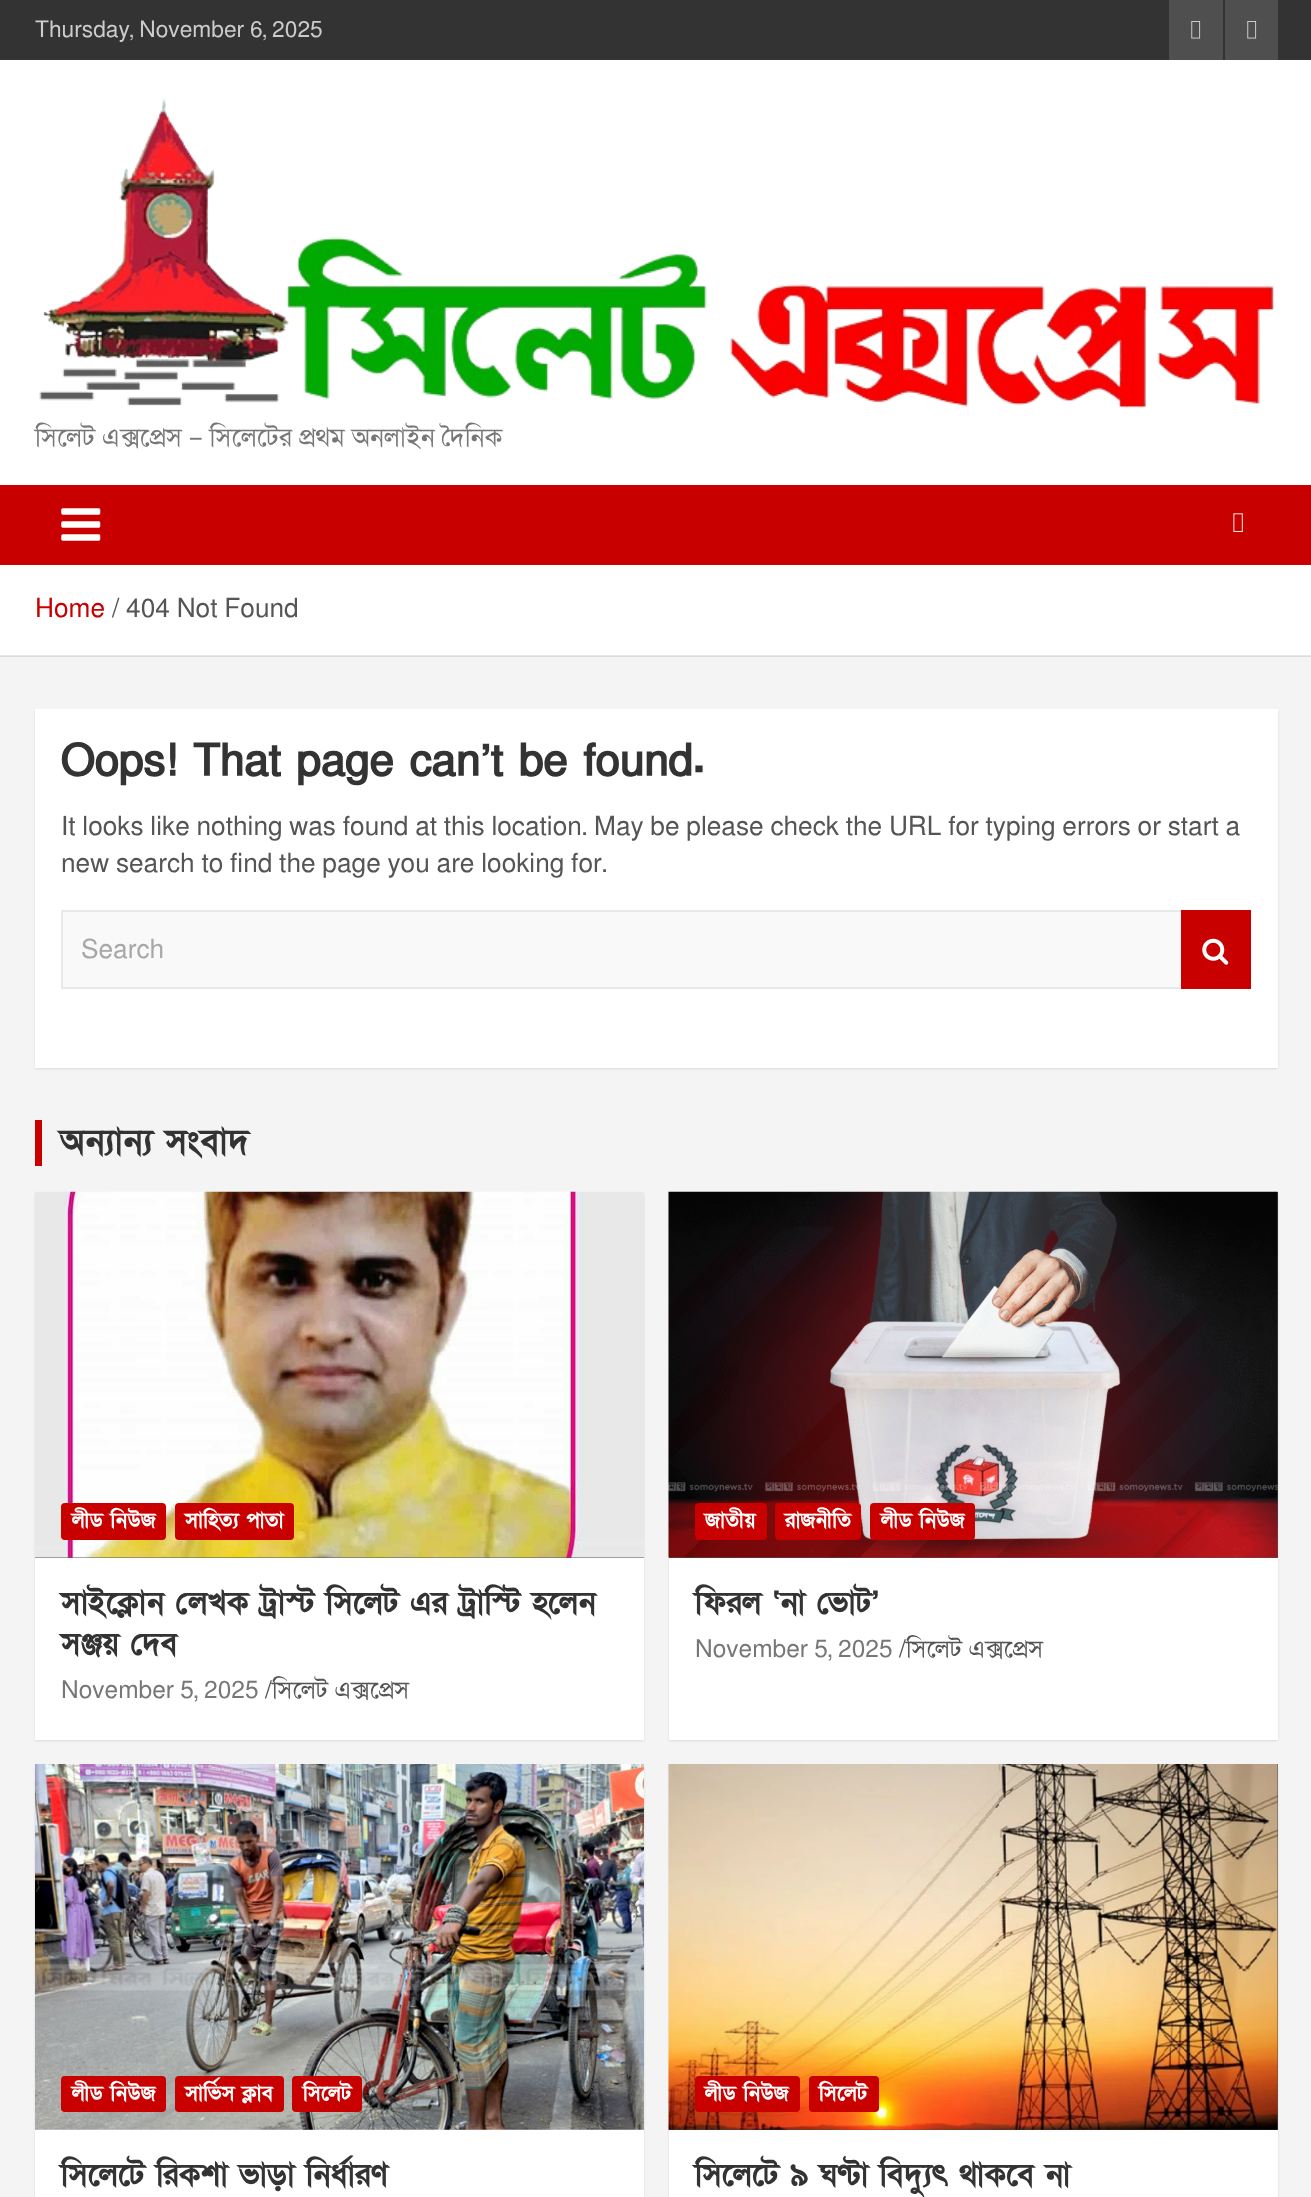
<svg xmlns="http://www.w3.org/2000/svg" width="1311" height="2197">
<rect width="100%" height="100%" fill="#f4f4f4"/>
<rect y="656" width="1311" height="1" fill="#dcdcdc"/>
<rect width="1311" height="60" fill="#333"/>
<text x="35" y="37" style="font-family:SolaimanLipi;font-size:22.75px;fill:#ccc">Thursday, November 6, 2025</text>
<rect x="1169" width="54" height="60" fill="#4f4f4f"/>
<image x="1191" y="21" width="10" height="18" href="media/1.png"/>
<rect x="1225" width="53" height="60" fill="#4f4f4f"/>
<image x="1247" y="21" width="10" height="18" href="media/1.png"/>
<rect y="60" width="1311" height="425" fill="#fff"/>
<image x="39" y="98" width="1235" height="311" href="media/2.png"/>
<text x="35" y="446" style="font-family:SolaimanLipi;font-size:26.25px;fill:#777">সিলেট এক্সপ্রেস – সিলেটের প্রথম অনলাইন দৈনিক</text>
<rect y="485" width="1311" height="80" fill="#c80000"/>
<image x="61" y="508" width="40" height="33" href="media/3.png"/>
<image x="1233" y="513" width="10" height="19" href="media/4.png"/>
<rect y="565" width="1311" height="90" fill="#fff"/>
<rect y="655" width="1311" height="1" fill="#e6e6e6"/>
<text x="35" y="617" style="font-family:SolaimanLipi;font-size:26.25px;fill:#c80000">Home</text>
<text x="112" y="617" style="font-family:SolaimanLipi;font-size:26.25px;fill:#555">/ 404 Not Found</text>
<rect x="35" y="711" width="1243" height="358" fill="#0000001a" filter="blur(1px)"/>
<rect x="35" y="709" width="1243" height="359" fill="#fff"/>
<text x="61" y="775" style="font-family:SolaimanLipi;font-size:43.75px;font-weight:bold;fill:#333">Oops! That page can’t be found.</text>
<text x="61" y="835" style="font-family:SolaimanLipi;font-size:26.25px;fill:#555">It looks like nothing was found at this location. May be please check the URL for typing errors or start a</text>
<text x="61" y="872" style="font-family:SolaimanLipi;font-size:26.25px;fill:#555">new search to find the page you are looking for.</text>
<rect x="63" y="912" width="1118" height="75" fill="#f9f9f9"/>
<path d="M61 910h1120v2h-1118z" fill="#e8e8e8"/>
<path d="M1181 989h-1120l2-2h1118z" fill="#e8e8e8"/>
<path d="M61 989v-79l2 2v75z" fill="#00000017"/>
<text x="81" y="958" style="font-family:SolaimanLipi;font-size:26.25px;fill:#a7a7a7">Search</text>
<rect x="1181" y="910" width="70" height="79" fill="#c80000"/>
<image x="1202" y="938" width="27" height="27" href="media/5.png"/>
<rect x="35" y="1120" width="7" height="46" fill="#c80000"/>
<text x="60" y="1153" style="font-family:SolaimanLipi;font-size:35px;font-weight:bold;fill:#333">অন্যান্য সংবাদ</text>
<rect x="35" y="1194" width="609" height="547" fill="#0000001a" filter="blur(1px)"/>
<rect x="35" y="1558" width="609" height="182" fill="#fff"/>
<rect x="35" y="1557" width="609" height="1" fill="#555"/>
<image x="35" y="1191" width="609" height="367" href="media/6.png"/>
<rect x="61" y="1503" width="105" height="37" rx="4" fill="#c80000"/>
<text x="72" y="1527" style="font-family:SolaimanLipi;font-size:21px;font-weight:bold;fill:#fff">লীড নিউজ</text>
<rect x="175" y="1503" width="119" height="37" rx="4" fill="#c80000"/>
<text x="185" y="1527" style="font-family:SolaimanLipi;font-size:21px;font-weight:bold;fill:#fff">সাহিত্য পাতা</text>
<text x="61" y="1613" style="font-family:SolaimanLipi;font-size:31.5px;font-weight:bold;fill:#333">সাইক্লোন লেখক ট্রাস্ট সিলেট এর ট্রাস্টি হলেন</text>
<text x="61" y="1654" style="font-family:SolaimanLipi;font-size:31.5px;font-weight:bold;fill:#333">সঞ্জয় দেব</text>
<text x="61" y="1698" style="font-family:SolaimanLipi;font-size:24.5px;fill:#777">November 5, 2025</text>
<text x="265" y="1698" style="font-family:SolaimanLipi;font-size:24.5px;fill:#555">/সিলেট এক্সপ্রেস</text>
<rect x="669" y="1194" width="609" height="547" fill="#0000001a" filter="blur(1px)"/>
<rect x="669" y="1558" width="609" height="182" fill="#fff"/>
<rect x="669" y="1192" width="609" height="366" fill="#555"/>
<image x="668" y="1191" width="610" height="367" href="media/7.png"/>
<rect x="695" y="1503" width="72" height="37" rx="4" fill="#c80000"/>
<text x="705" y="1527" style="font-family:SolaimanLipi;font-size:21px;font-weight:bold;fill:#fff">জাতীয়</text>
<rect x="775" y="1503" width="86" height="37" rx="4" fill="#c80000"/>
<text x="785" y="1527" style="font-family:SolaimanLipi;font-size:21px;font-weight:bold;fill:#fff">রাজনীতি</text>
<rect x="870" y="1503" width="105" height="37" rx="4" fill="#c80000"/>
<text x="881" y="1527" style="font-family:SolaimanLipi;font-size:21px;font-weight:bold;fill:#fff">লীড নিউজ</text>
<text x="695" y="1613" style="font-family:SolaimanLipi;font-size:31.5px;font-weight:bold;fill:#333">ফিরল ‘না ভোট’</text>
<text x="695" y="1657" style="font-family:SolaimanLipi;font-size:24.5px;fill:#777">November 5, 2025</text>
<text x="899" y="1657" style="font-family:SolaimanLipi;font-size:24.5px;fill:#555">/সিলেট এক্সপ্রেস</text>
<rect x="35" y="1766" width="609" height="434" fill="#0000001a" filter="blur(1px)"/>
<rect x="35" y="2129" width="609" height="68" fill="#fff"/>
<image x="35" y="1764" width="609" height="366" href="media/8.png"/>
<rect x="61" y="2076" width="105" height="36" rx="4" fill="#c80000"/>
<text x="72" y="2100" style="font-family:SolaimanLipi;font-size:21px;font-weight:bold;fill:#fff">লীড নিউজ</text>
<rect x="175" y="2076" width="109" height="36" rx="4" fill="#c80000"/>
<text x="185" y="2100" style="font-family:SolaimanLipi;font-size:21px;font-weight:bold;fill:#fff">সার্ভিস ক্লাব</text>
<rect x="292" y="2076" width="70" height="36" rx="4" fill="#c80000"/>
<text x="303" y="2100" style="font-family:SolaimanLipi;font-size:21px;font-weight:bold;fill:#fff">সিলেট</text>
<text x="61" y="2185" style="font-family:SolaimanLipi;font-size:31.5px;font-weight:bold;fill:#333">সিলেটে রিকশা ভাড়া নির্ধারণ</text>
<rect x="669" y="1766" width="609" height="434" fill="#0000001a" filter="blur(1px)"/>
<rect x="669" y="2130" width="609" height="67" fill="#fff"/>
<rect x="669" y="1764" width="609" height="366" fill="#555"/>
<image x="668" y="1764" width="610" height="366" href="media/9.png"/>
<rect x="695" y="2076" width="105" height="36" rx="4" fill="#c80000"/>
<text x="705" y="2100" style="font-family:SolaimanLipi;font-size:21px;font-weight:bold;fill:#fff">লীড নিউজ</text>
<rect x="809" y="2076" width="70" height="36" rx="4" fill="#c80000"/>
<text x="819" y="2100" style="font-family:SolaimanLipi;font-size:21px;font-weight:bold;fill:#fff">সিলেট</text>
<text x="695" y="2185" style="font-family:SolaimanLipi;font-size:31.5px;font-weight:bold;fill:#333">সিলেটে ৯ ঘণ্টা বিদ্যুৎ থাকবে না</text>
</svg>
